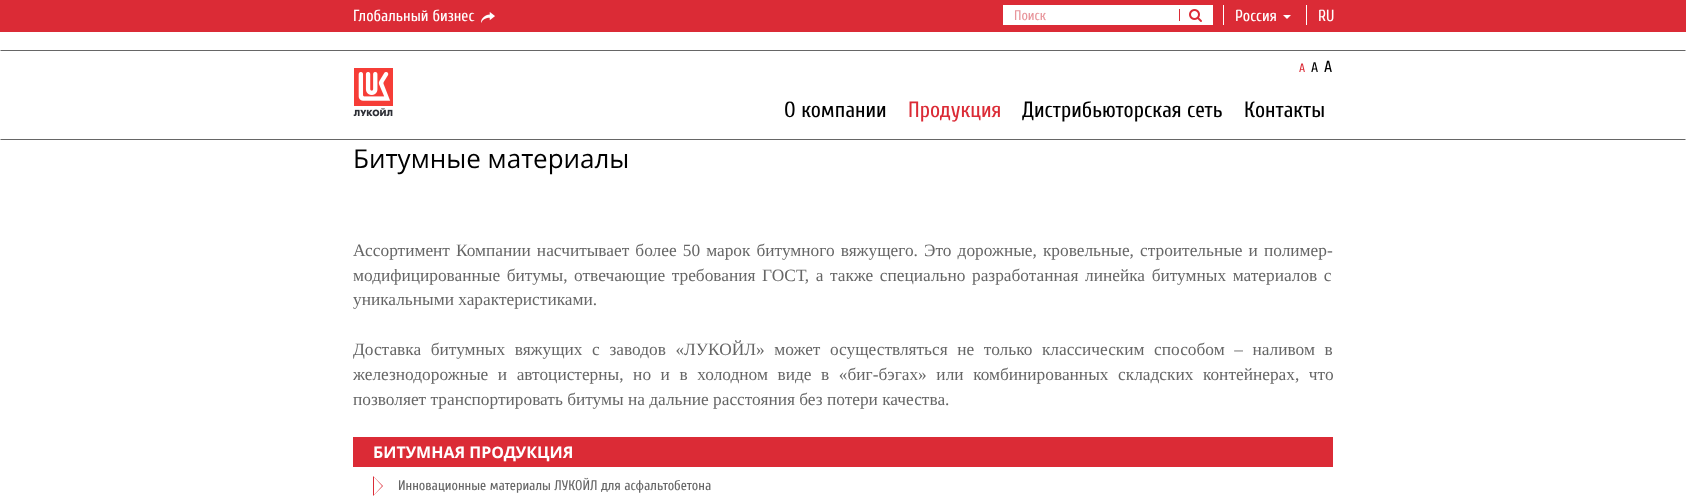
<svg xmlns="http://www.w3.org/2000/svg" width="1686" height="502">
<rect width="100%" height="100%" fill="#fff"/>
<rect width="1686" height="32" fill="#db2b36"/>
<text x="353" y="21" style="font-family:Cuprum;font-size:16px;fill:#fff">Глобальный бизнес</text>
<image x="481" y="12" width="14" height="11" href="media/1.png"/>
<rect x="1003" y="5" width="210" height="20" fill="#fff"/>
<rect x="1179" y="9" width="1" height="12" fill="#db2b36"/>
<image x="1189" y="9" width="13" height="13" href="media/2.png"/>
<text x="1014" y="20" style="font-family:Cuprum;font-size:14px;fill:#e8959b">Поиск</text>
<rect x="1223" y="5" width="1" height="20" fill="#fff"/>
<text x="1235" y="21" style="font-family:Cuprum;font-size:16px;fill:#fff">Россия</text>
<path d="M1283 15h8l-4 4z" fill="#fff"/>
<rect x="1306" y="5" width="1" height="20" fill="#fff"/>
<text x="1318" y="21" style="font-family:Cuprum;font-size:16px;fill:#fff">RU</text>
<path d="M0 50h1686l-1 1h-1684z" fill="#666"/>
<path d="M1686 140h-1686l1-1h1684z" fill="#666"/>
<image x="353" y="68" width="40" height="49" href="media/3.png"/>
<text x="1299" y="72" style="font-family:Cuprum;font-size:12px;fill:#db2b36">A</text>
<text x="1311" y="72" style="font-family:Cuprum;font-size:14px;fill:#000">A</text>
<text x="1324" y="72" style="font-family:Cuprum;font-size:16px;fill:#000">A</text>
<text x="784" y="117" style="font-family:Cuprum;font-size:22px;fill:#000">О компании</text>
<text x="908" y="117" style="font-family:Cuprum;font-size:22px;fill:#db2b36">Продукция</text>
<text x="1022" y="117" style="font-family:Cuprum;font-size:22px;fill:#000">Дистрибьюторская сеть</text>
<text x="1244" y="117" style="font-family:Cuprum;font-size:22px;fill:#000">Контакты</text>
<text x="353" y="168" style="font-family:Open Sans;font-size:26px;fill:#000">Битумные материалы</text>
<text x="353" y="256" word-spacing="1.75" style="font-family:Liberation Serif;font-size:17.33px;fill:#666">Ассортимент Компании насчитывает более 50 марок битумного вяжущего. Это дорожные, кровельные, строительные и полимер-</text>
<text x="353" y="281" word-spacing="2.25" style="font-family:Liberation Serif;font-size:17.33px;fill:#666">модифицированные битумы, отвечающие требования ГОСТ, а также специально разработанная линейка битумных материалов с</text>
<text x="353" y="305" style="font-family:Liberation Serif;font-size:17.33px;fill:#666">уникальными характеристиками.</text>
<text x="353" y="355" word-spacing="5.25" style="font-family:Liberation Serif;font-size:17.33px;fill:#666">Доставка битумных вяжущих с заводов «ЛУКОЙЛ» может осуществляться не только классическим способом – наливом в</text>
<text x="353" y="380" word-spacing="5.25" style="font-family:Liberation Serif;font-size:17.33px;fill:#666">железнодорожные и автоцистерны, но и в холодном виде в «биг-бэгах» или комбинированных складских контейнерах, что</text>
<text x="353" y="405" style="font-family:Liberation Serif;font-size:17.33px;fill:#666">позволяет транспортировать битумы на дальние расстояния без потери качества.</text>
<rect x="353" y="437" width="980" height="30" fill="#db2b36"/>
<text x="373" y="458" style="font-family:Open Sans;font-size:16px;font-weight:bold;fill:#fff">БИТУМНАЯ ПРОДУКЦИЯ</text>
<path d="M373 496v-20l10 10z" fill="#db2b36"/>
<path d="M374 495v-18l8 9z" fill="#fff"/>
<text x="398" y="490" style="font-family:Cuprum;font-size:14px;fill:#666">Инновационные материалы ЛУКОЙЛ для асфальтобетона</text>
</svg>
